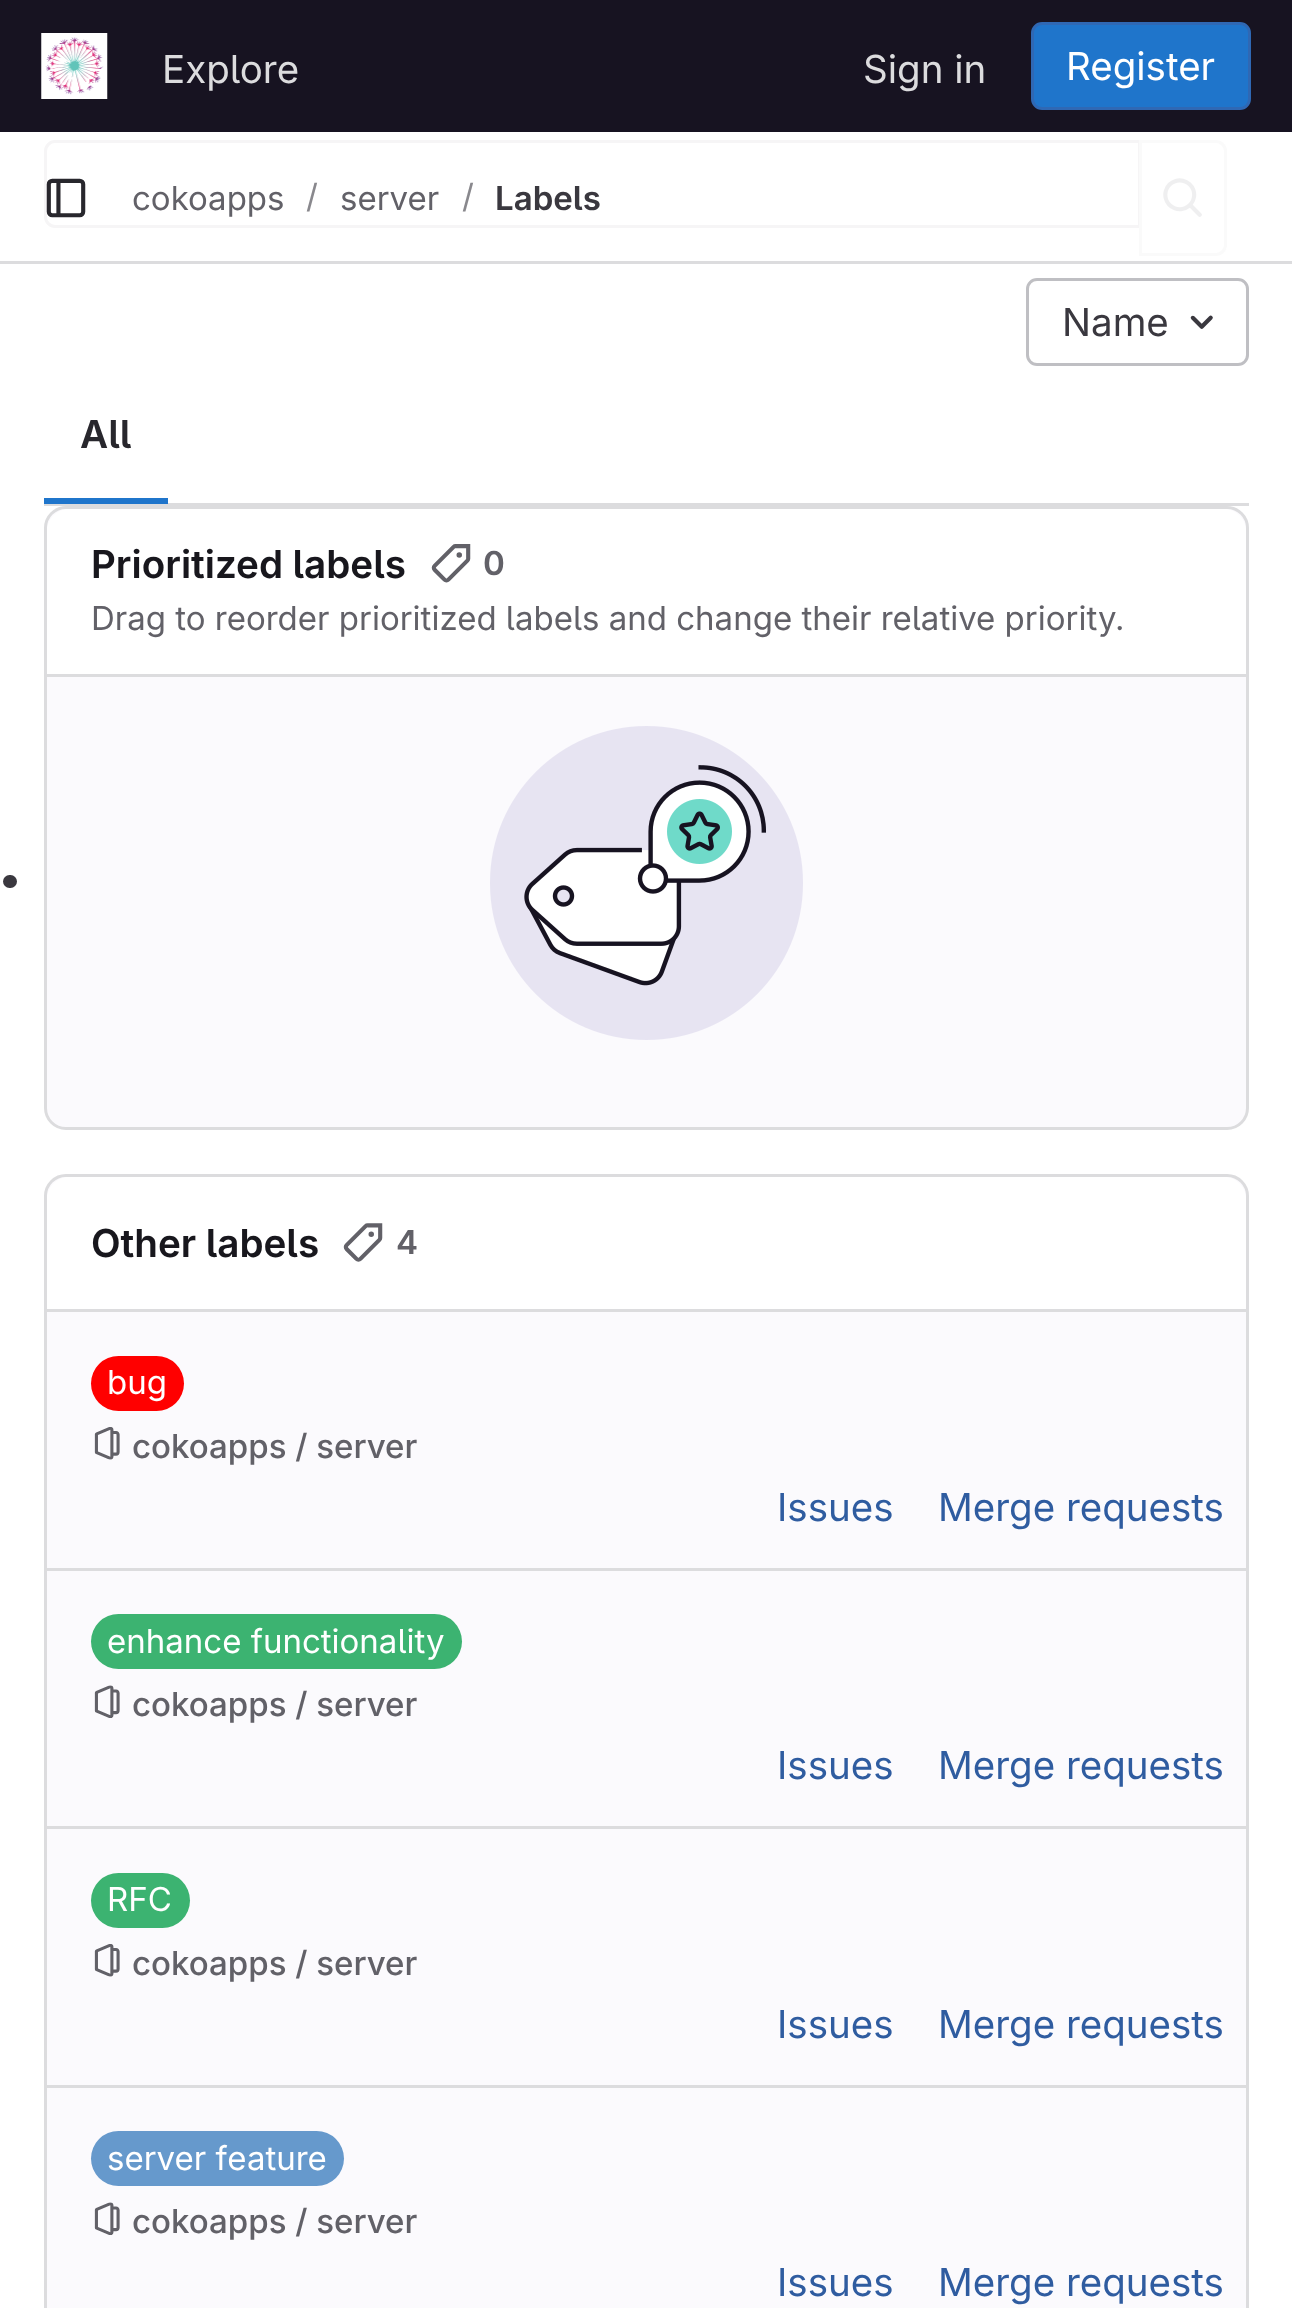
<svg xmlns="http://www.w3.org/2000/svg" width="1292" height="2308">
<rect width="100%" height="100%" fill="#fff"/>
<rect width="1292" height="132" fill="#171321"/>
<image x="41" y="33" width="67" height="66" href="media/1.png"/>
<text x="162" y="83" style="font-family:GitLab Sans;font-size:38.5px;fill:#dcdcde">Explore</text>
<text x="863" y="83" style="font-family:GitLab Sans;font-size:38.5px;fill:#dcdcde">Sign in</text>
<rect x="1032.5" y="23.5" width="217" height="85" rx="9.5" fill="#1f75cb" stroke="#2f68b4" stroke-width="3"/>
<text x="1066" y="80" style="font-family:GitLab Sans;font-size:38.5px;fill:#fff">Register</text>
<rect y="261" width="1292" height="3" fill="#dcdcde"/>
<path d="M55 141.5h1084.5v85h-1084.5c-5 0-9.5-4.5-9.5-9.5v-66c0-5 4.5-9.5 9.5-9.5z" fill="none" stroke="#f6f5f6" stroke-width="3"/>
<image x="46" y="178" width="40" height="40" href="media/2.png"/>
<text x="132" y="210" style="font-family:GitLab Sans;font-size:33px;fill:#626168">cokoapps</text>
<text x="306" y="208" style="font-family:GitLab Sans;font-size:33px;fill:#89888d">/</text>
<text x="340" y="210" style="font-family:GitLab Sans;font-size:33px;fill:#626168">server</text>
<text x="462" y="208" style="font-family:GitLab Sans;font-size:33px;fill:#89888d">/</text>
<text x="495" y="210" style="font-family:GitLab Sans;font-size:33px;font-weight:600;fill:#3a383f">Labels</text>
<rect x="44" y="503" width="1205" height="3" fill="#dcdcde"/>
<path d="M1140.5 141.5h75.5c5 0 9.5 4.5 9.5 9.5v94c0 5-4.5 9.5-9.5 9.5h-75.5z" fill="#fff" stroke="#fafafa" stroke-width="3"/>
<image x="1163" y="178" width="39" height="39" href="media/3.png"/>
<rect x="1027.5" y="279.5" width="220" height="85" rx="9.5" fill="none" stroke="#bfbfc3" stroke-width="3"/>
<text x="1062" y="336" style="font-family:GitLab Sans;font-size:38.5px;fill:#3a383f">Name</text>
<image x="1190" y="315" width="23" height="14" href="media/4.png"/>
<text x="80" y="448" style="font-family:GitLab Sans;font-size:38.5px;font-weight:600;fill:#28272d">All</text>
<rect x="44" y="498" width="124" height="6" fill="#1f75cb"/>
<rect x="45.5" y="507.5" width="1202" height="621" rx="20.5" fill="#fbfafd" stroke="#dcdcde" stroke-width="3"/>
<path d="M69 509h1155c12 0 22 10 22 22v146h-1199v-146c0-12 10-22 22-22z" fill="#fff"/>
<rect x="47" y="674" width="1199" height="3" fill="#dcdcde"/>
<text x="91" y="578" style="font-family:GitLab Sans;font-size:38.5px;font-weight:600;fill:#18171d">Prioritized labels</text>
<image x="431" y="544" width="40" height="39" href="media/5.png"/>
<text x="483" y="575" style="font-family:GitLab Sans;font-size:33px;font-weight:600;fill:#626168">0</text>
<text x="91" y="630" style="font-family:GitLab Sans;font-size:33px;fill:#626168">Drag to reorder prioritized labels and change their relative priority.</text>
<rect x="3" y="875" width="14" height="13" rx="6.5" fill="#3a383f"/>
<image x="490" y="726" width="313" height="314" href="media/6.png"/>
<rect x="45.5" y="1175.5" width="1202" height="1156" rx="20.5" fill="#fbfafd" stroke="#dcdcde" stroke-width="3"/>
<path d="M69 1177h1155c12 0 22 10 22 22v113h-1199v-113c0-12 10-22 22-22z" fill="#fff"/>
<rect x="47" y="1309" width="1199" height="3" fill="#dcdcde"/>
<text x="91" y="1257" style="font-family:GitLab Sans;font-size:38.5px;font-weight:600;fill:#18171d">Other labels</text>
<image x="343" y="1223" width="40" height="39" href="media/7.png"/>
<text x="396" y="1254" style="font-family:GitLab Sans;font-size:33px;font-weight:600;fill:#626168">4</text>
<rect x="47" y="1568" width="1199" height="3" fill="#dcdcde"/>
<rect x="91" y="1356" width="93" height="55" rx="27.5" fill="#f00"/>
<text x="107" y="1394" style="font-family:GitLab Sans;font-size:33px;fill:#fff">bug</text>
<image x="94" y="1427" width="26" height="33" href="media/8.png"/>
<text x="132" y="1458" style="font-family:GitLab Sans;font-size:33px;font-weight:500;fill:#626168">cokoapps / server</text>
<text x="777" y="1521" style="font-family:GitLab Sans;font-size:38.5px;fill:#2f5ca0">Issues</text>
<text x="938" y="1521" style="font-family:GitLab Sans;font-size:38.5px;fill:#2f5ca0">Merge requests</text>
<rect x="47" y="1826" width="1199" height="3" fill="#dcdcde"/>
<rect x="91" y="1614" width="371" height="55" rx="27.5" fill="#3cb371"/>
<text x="107" y="1653" style="font-family:GitLab Sans;font-size:33px;fill:#fff">enhance functionality</text>
<image x="94" y="1685" width="26" height="33" href="media/9.png"/>
<text x="132" y="1716" style="font-family:GitLab Sans;font-size:33px;font-weight:500;fill:#626168">cokoapps / server</text>
<text x="777" y="1779" style="font-family:GitLab Sans;font-size:38.5px;fill:#2f5ca0">Issues</text>
<text x="938" y="1779" style="font-family:GitLab Sans;font-size:38.5px;fill:#2f5ca0">Merge requests</text>
<rect x="47" y="2085" width="1199" height="3" fill="#dcdcde"/>
<rect x="91" y="1873" width="99" height="55" rx="27.5" fill="#3cb371"/>
<text x="107" y="1911" style="font-family:GitLab Sans;font-size:33px;fill:#fff">RFC</text>
<image x="94" y="1944" width="26" height="33" href="media/10.png"/>
<text x="132" y="1975" style="font-family:GitLab Sans;font-size:33px;font-weight:500;fill:#626168">cokoapps / server</text>
<text x="777" y="2038" style="font-family:GitLab Sans;font-size:38.5px;fill:#2f5ca0">Issues</text>
<text x="938" y="2038" style="font-family:GitLab Sans;font-size:38.5px;fill:#2f5ca0">Merge requests</text>
<rect x="91" y="2131" width="253" height="55" rx="27.5" fill="#69c"/>
<text x="107" y="2170" style="font-family:GitLab Sans;font-size:33px;fill:#fff">server feature</text>
<image x="94" y="2202" width="26" height="33" href="media/11.png"/>
<text x="132" y="2233" style="font-family:GitLab Sans;font-size:33px;font-weight:500;fill:#626168">cokoapps / server</text>
<text x="777" y="2296" style="font-family:GitLab Sans;font-size:38.5px;fill:#2f5ca0">Issues</text>
<text x="938" y="2296" style="font-family:GitLab Sans;font-size:38.5px;fill:#2f5ca0">Merge requests</text>
</svg>
